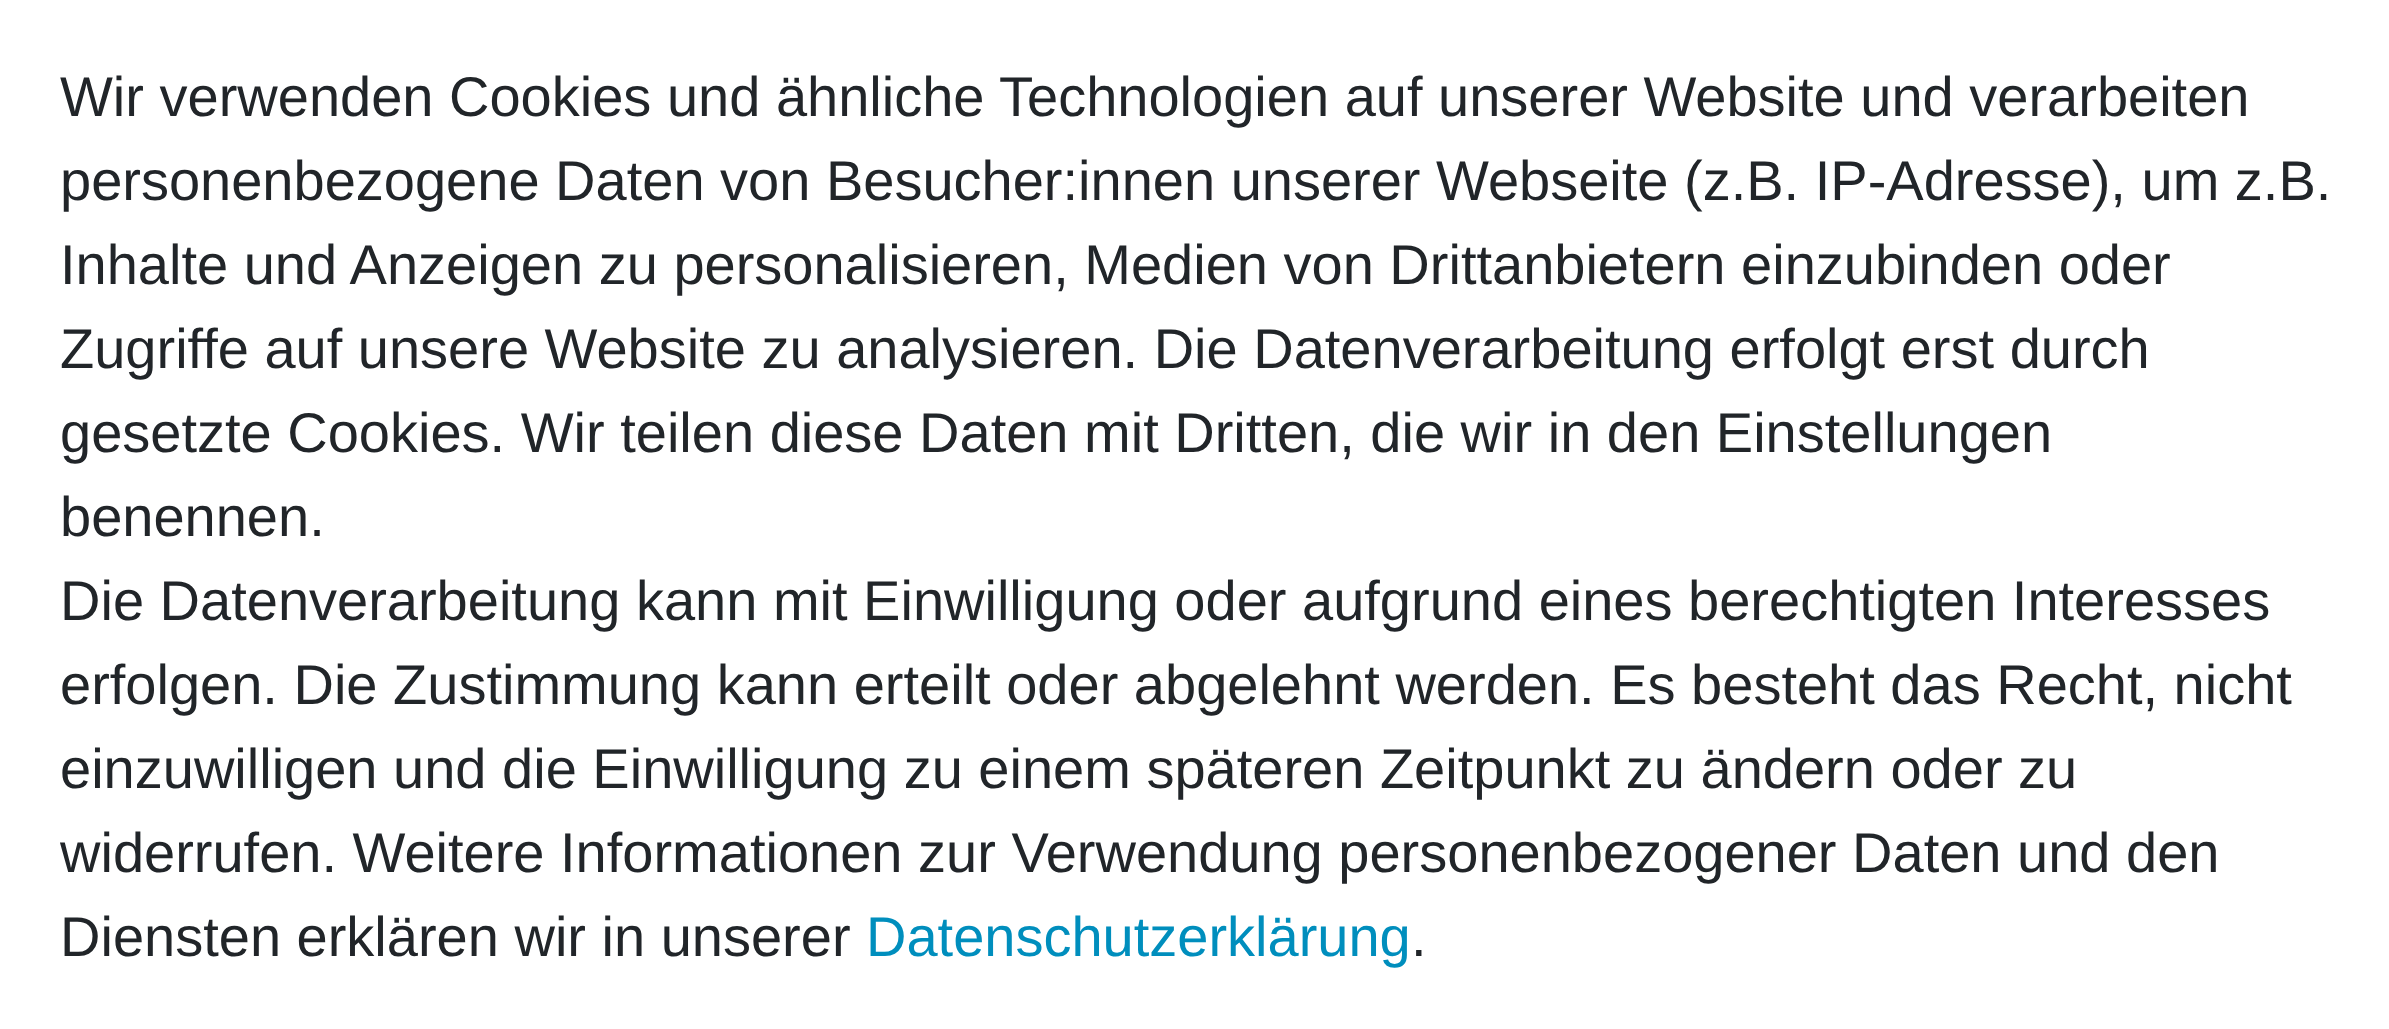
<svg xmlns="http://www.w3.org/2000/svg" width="2389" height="1029">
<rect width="100%" height="100%" fill="#fff"/>
<text x="60" y="116" style="font-family:Liberation Sans;font-size:56px;fill:#212529">Wir verwenden Cookies und ähnliche Technologien auf unserer Website und verarbeiten</text>
<text x="60" y="200" style="font-family:Liberation Sans;font-size:56px;fill:#212529">personenbezogene Daten von Besucher:innen unserer Webseite (z.B. IP-Adresse), um z.B.</text>
<text x="60" y="284" style="font-family:Liberation Sans;font-size:56px;fill:#212529">Inhalte und Anzeigen zu personalisieren, Medien von Drittanbietern einzubinden oder</text>
<text x="60" y="368" style="font-family:Liberation Sans;font-size:56px;fill:#212529">Zugriffe auf unsere Website zu analysieren. Die Datenverarbeitung erfolgt erst durch</text>
<text x="60" y="452" style="font-family:Liberation Sans;font-size:56px;fill:#212529">gesetzte Cookies. Wir teilen diese Daten mit Dritten, die wir in den Einstellungen</text>
<text x="60" y="536" style="font-family:Liberation Sans;font-size:56px;fill:#212529">benennen.</text>
<text x="60" y="620" style="font-family:Liberation Sans;font-size:56px;fill:#212529">Die Datenverarbeitung kann mit Einwilligung oder aufgrund eines berechtigten Interesses</text>
<text x="60" y="704" style="font-family:Liberation Sans;font-size:56px;fill:#212529">erfolgen. Die Zustimmung kann erteilt oder abgelehnt werden. Es besteht das Recht, nicht</text>
<text x="60" y="788" style="font-family:Liberation Sans;font-size:56px;fill:#212529">einzuwilligen und die Einwilligung zu einem späteren Zeitpunkt zu ändern oder zu</text>
<text x="60" y="872" style="font-family:Liberation Sans;font-size:56px;fill:#212529">widerrufen. Weitere Informationen zur Verwendung personenbezogener Daten und den</text>
<text x="60" y="956" style="font-family:Liberation Sans;font-size:56px;fill:#212529">Diensten erklären wir in unserer</text>
<text x="866" y="956" style="font-family:Liberation Sans;font-size:56px;fill:#008ebd">Datenschutzerklärung</text>
<text x="1411" y="956" style="font-family:Liberation Sans;font-size:56px;fill:#212529">.</text>
</svg>
